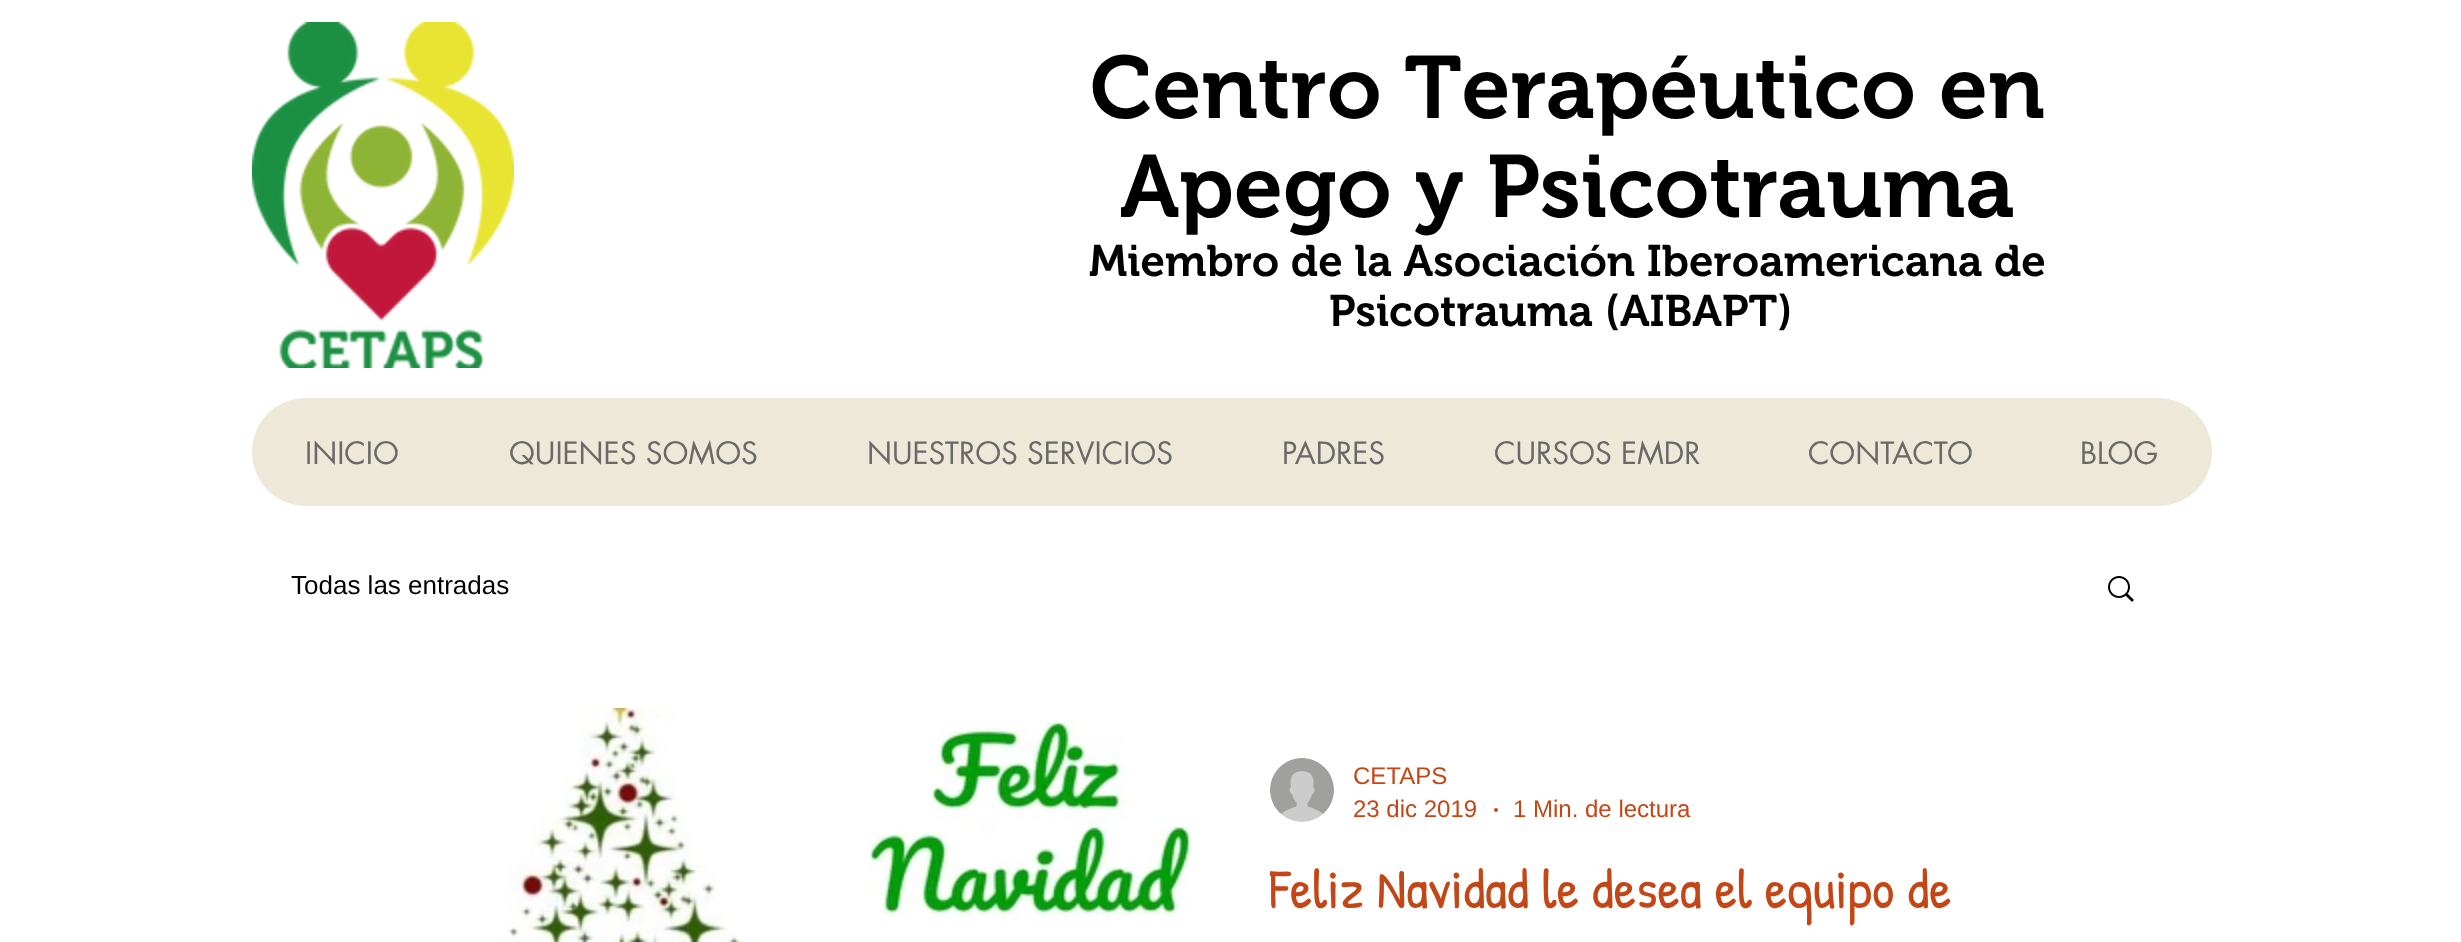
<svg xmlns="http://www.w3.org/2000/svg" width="2461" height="942">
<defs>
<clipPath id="clip1"><rect x="1270" y="850" width="828" height="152"/></clipPath>
</defs>
<rect width="100%" height="100%" fill="#fff"/>
<image x="252" y="22" width="262" height="346" href="media/1.png"/>
<text x="1090" y="118" style="font-family:'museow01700';font-size:88px;font-weight:600;fill:#000">Centro Terapéutico en</text>
<text x="1120" y="217" style="font-family:'museow01700';font-size:88px;font-weight:600;fill:#000">Apego y Psicotrauma</text>
<text x="1089" y="276" style="font-family:'museow01700';font-size:44px;font-weight:600;fill:#000">Miembro de la Asociación Iberoamericana de</text>
<text x="1329" y="326" style="font-family:'museow01700';font-size:44px;font-weight:600;fill:#000">Psicotrauma (AIBAPT)</text>
<rect x="252" y="398" width="1960" height="108" rx="54" fill="#eee8d8"/>
<text x="305" y="464" style="font-family:futura;font-size:30px;fill:#696969">INICIO</text>
<text x="509" y="464" style="font-family:futura;font-size:30px;fill:#696969">QUIENES SOMOS</text>
<text x="867" y="464" style="font-family:futura;font-size:30px;fill:#696969">NUESTROS SERVICIOS</text>
<text x="1282" y="464" style="font-family:futura;font-size:30px;fill:#696969">PADRES</text>
<text x="1494" y="464" style="font-family:futura;font-size:30px;fill:#696969">CURSOS EMDR</text>
<text x="1808" y="464" style="font-family:futura;font-size:30px;fill:#696969">CONTACTO</text>
<text x="2080" y="464" style="font-family:futura;font-size:30px;fill:#696969">BLOG</text>
<text x="291" y="594" style="font-family:Liberation Sans;font-size:26px;fill:#000">Todas las entradas</text>
<image x="2108" y="576" width="26" height="26" href="media/2.png"/>
<image x="441" y="708" width="757" height="234" href="media/3.png"/>
<image x="1270" y="758" width="64" height="64" href="media/4.png"/>
<text x="1353" y="784" style="font-family:Liberation Sans;font-size:24px;fill:#c34716">CETAPS</text>
<text x="1353" y="817" style="font-family:Liberation Sans;font-size:24px;fill:#c34716">23 dic 2019</text>
<circle cx="1496" cy="810" r="2" fill="#c34716"/>
<text x="1513" y="817" style="font-family:Liberation Sans;font-size:24px;fill:#c34716">1 Min. de lectura</text>
<g clip-path="url(#clip1)">
<text x="1269" y="908" style="font-family:Patrick Hand;font-size:56px;fill:#c34716">Feliz Navidad le desea el equipo de</text>
</g>
</svg>
